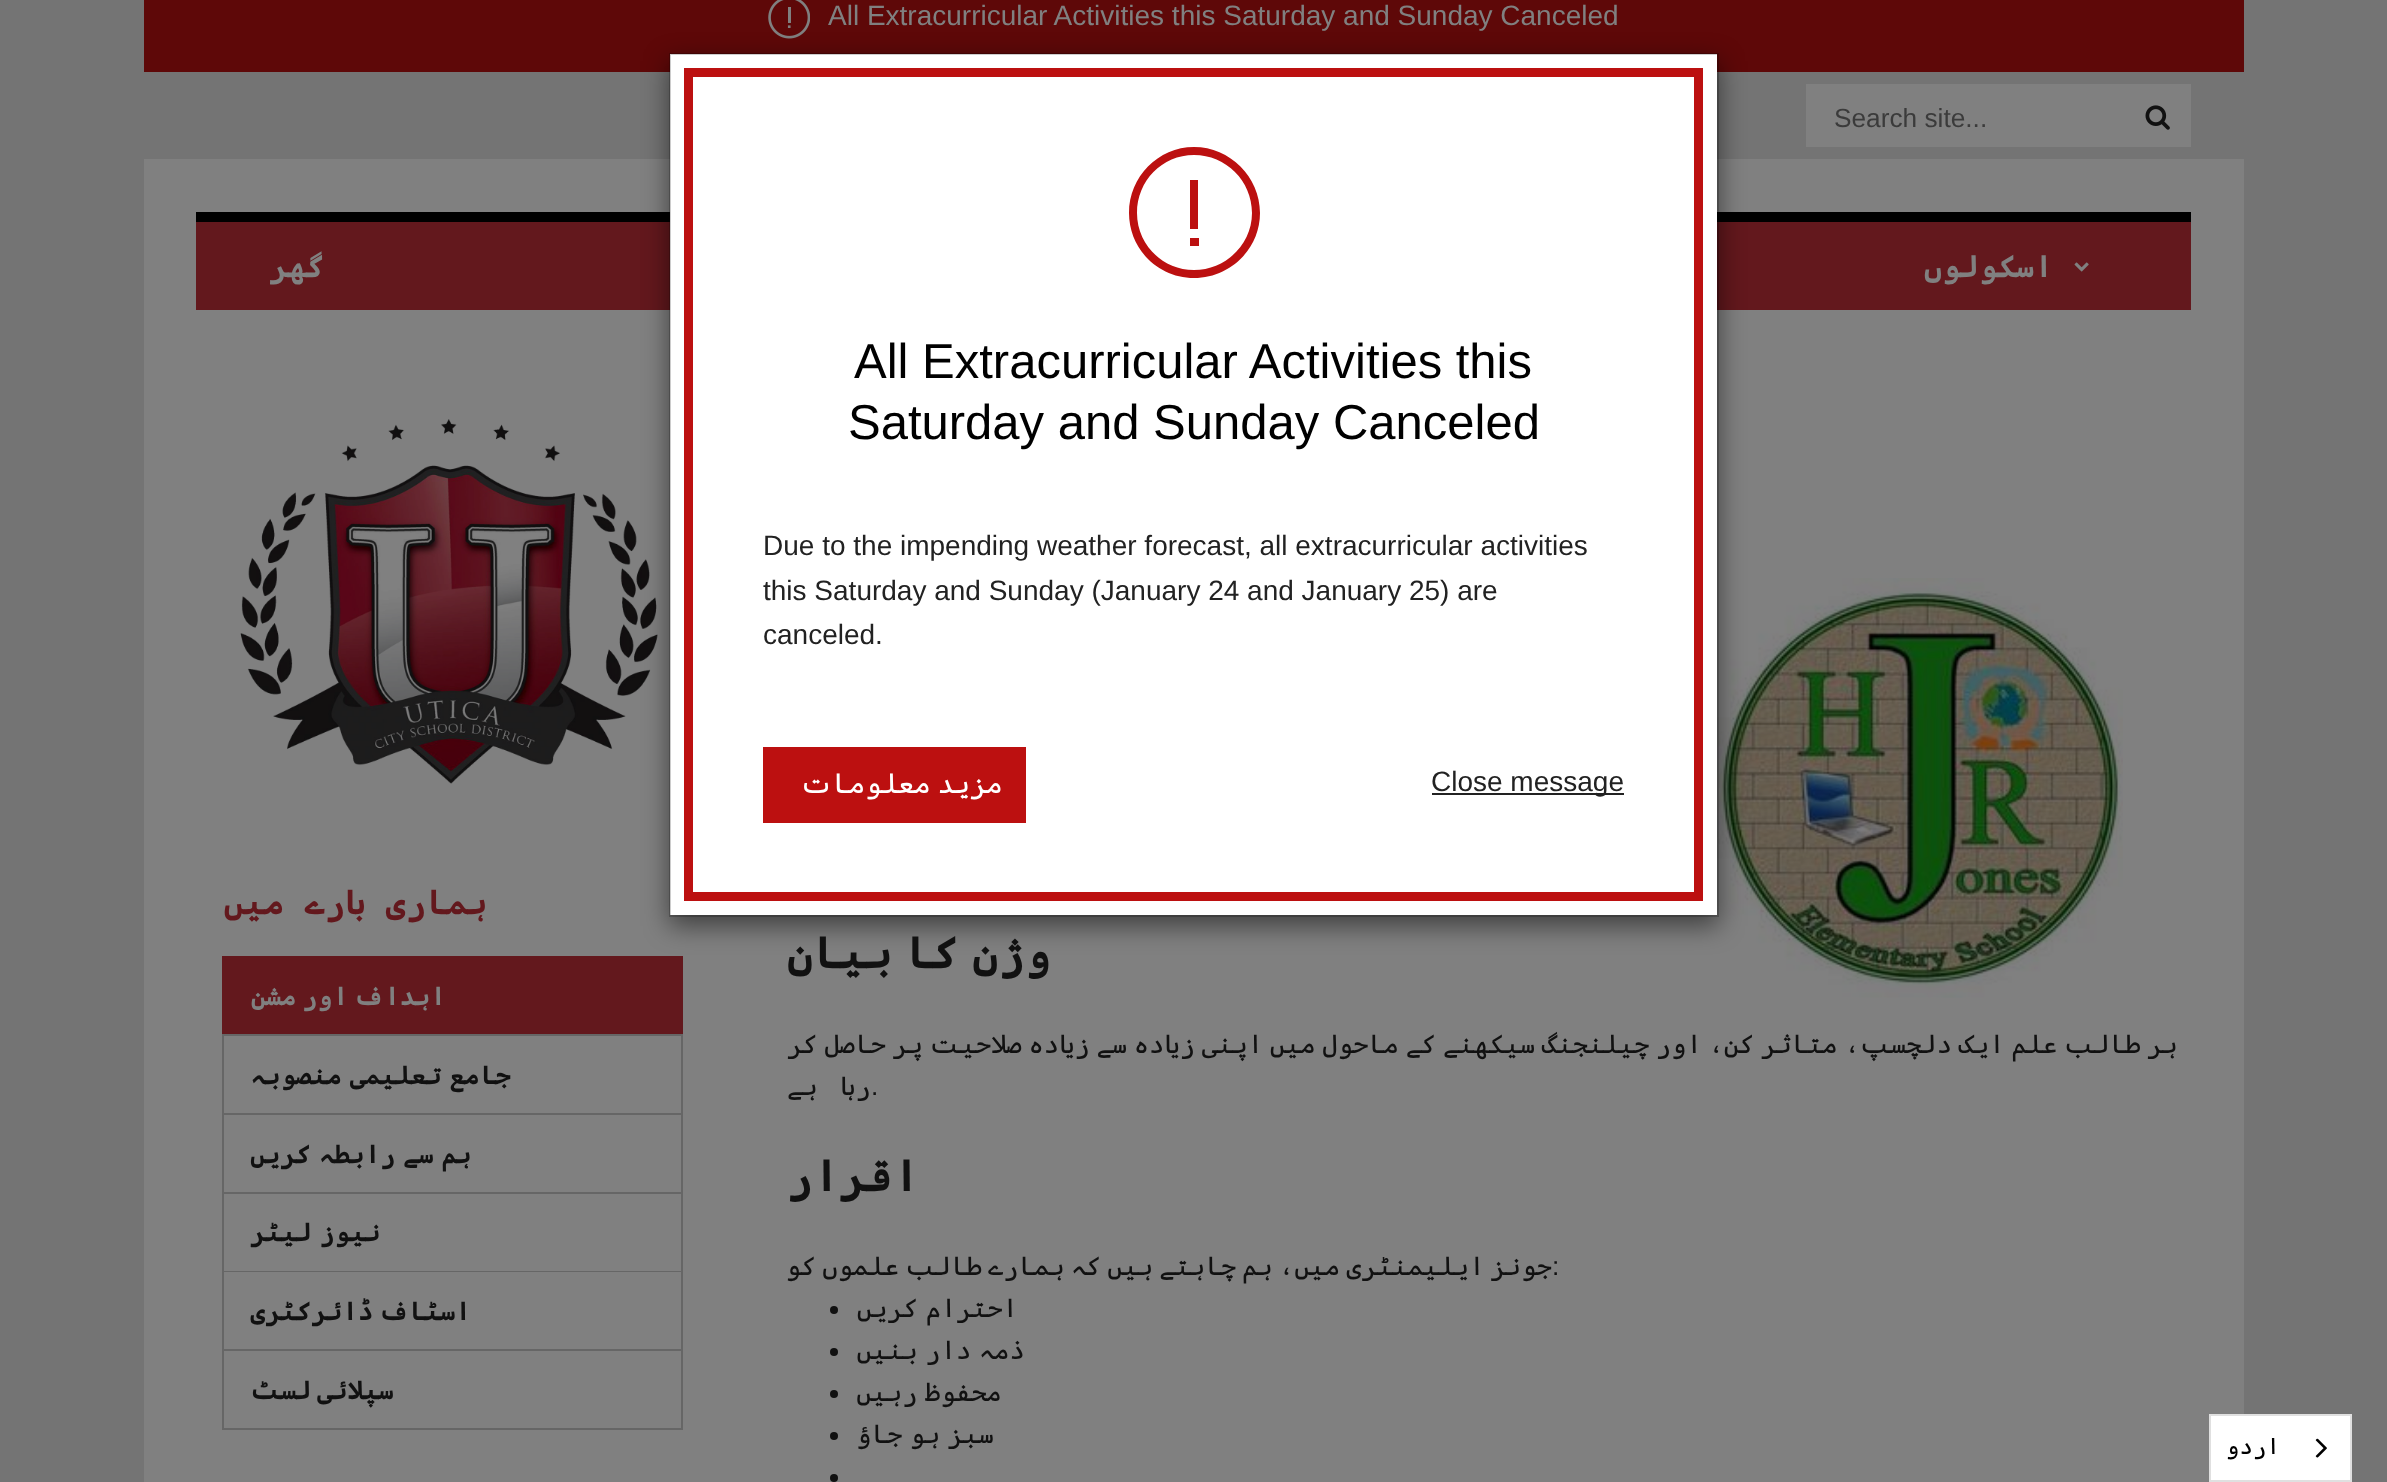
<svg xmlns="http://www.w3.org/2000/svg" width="2387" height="1482">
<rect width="100%" height="100%" fill="#747474"/>
<rect x="144" y="159" width="2100" height="1323" fill="#808080"/>
<rect x="2210" y="1415" width="141" height="66" fill="#fff" stroke="#e0e0e0" stroke-width="2"/>
<image x="2315" y="1438" width="12" height="20" href="media/1.png"/>
<text x="2280" y="1454" style="font-family:Cascadia Code;font-size:23px;direction:rtl;fill:#000">اردو</text>
<rect x="144" width="2100" height="72" fill="#5e0808"/>
<text x="828" y="25" style="font-family:Liberation Sans;font-size:28px;fill:#808080">All Extracurricular Activities this Saturday and Sunday Canceled</text>
<image x="768" y="0" width="42" height="39" href="media/2.png"/>
<rect x="196" y="212" width="1995" height="10" fill="#000"/>
<rect x="1717" y="222" width="474" height="88" fill="#63181d"/>
<rect x="196" y="222" width="474" height="88" fill="#63181d"/>
<image x="1707" y="578" width="416" height="420" href="media/5.png"/>
<image x="240" y="419" width="418" height="365" href="media/6.png"/>
<rect x="222" y="956" width="461" height="1" fill="#63181d"/>
<rect x="681" y="956" width="2" height="78" fill="#63181d"/>
<rect x="224" y="957" width="457" height="77" fill="#63181d"/>
<rect x="669" y="61" width="1050" height="865" fill="#00000080" filter="blur(13px)"/>
<rect x="670" y="54" width="1047" height="861" fill="#fff"/>
<rect x="670" y="54" width="1048" height="862" fill="none" stroke="#00000033" stroke-width="2"/>
<rect x="688.5" y="72.5" width="1010" height="824" fill="none" stroke="#bc1010" stroke-width="9"/>
<path d="M1194 147c-36 0-65 30-65 66c0 36 29 65 65 65c36 0 66-29 66-65c0-36-30-66-66-66zm0 123c-32 0-57-26-57-57c0-32 25-58 57-58c32 0 58 26 58 58c0 31-26 57-58 57z" fill="#bc1010"/>
<rect x="1190" y="238" width="9" height="8" fill="#bc1010"/>
<rect x="1190" y="180" width="8" height="49" fill="#bc1010"/>
<text x="854" y="378" style="font-family:Liberation Sans;font-size:49px;fill:#000">All Extracurricular Activities this</text>
<text x="848" y="439" style="font-family:Liberation Sans;font-size:49px;fill:#000">Saturday and Sunday Canceled</text>
<text x="763" y="555" style="font-family:Liberation Sans;font-size:28px;fill:#222">Due to the impending weather forecast, all extracurricular activities</text>
<text x="763" y="600" style="font-family:Liberation Sans;font-size:28px;fill:#222">this Saturday and Sunday (January 24 and January 25) are</text>
<text x="763" y="644" style="font-family:Liberation Sans;font-size:28px;fill:#222">canceled.</text>
<rect x="1432" y="793" width="192" height="2" fill="#222"/>
<text x="1431" y="791" style="font-family:Liberation Sans;font-size:28px;fill:#222">Close message</text>
<rect x="763" y="747" width="263" height="76" fill="#bc1010"/>
<text x="1003" y="793" word-spacing="-10" style="font-family:Cascadia Code;font-size:28px;direction:rtl;fill:#fff">مزید معلومات</text>
<rect x="1806" y="84" width="385" height="63" fill="#808080"/>
<image x="2145" y="105" width="25" height="25" href="media/3.png"/>
<text x="1834" y="127" style="font-family:Liberation Sans;font-size:26.25px;fill:#3b3b3b">Search site...</text>
<text x="325" y="277" style="font-family:Cascadia Code;font-size:31.5px;font-weight:bold;direction:rtl;fill:#808080">گھر</text>
<image x="2074" y="262" width="15" height="10" href="media/4.png"/>
<text x="2053" y="277" style="font-family:Cascadia Code;font-size:31.5px;font-weight:bold;direction:rtl;fill:#808080">اسکولوں</text>
<text x="1052" y="968" word-spacing="-14" style="font-family:Cascadia Code;font-size:45.5px;font-weight:bold;direction:rtl;fill:#111">وژن کا بیان</text>
<text x="2178" y="1053" word-spacing="-8.9" style="font-family:Cascadia Code;font-size:26.25px;direction:rtl;fill:#111">ہر طالب علم ایک دلچسپ، متاثر کن، اور چیلنجنگ سیکھنے کے ماحول میں اپنی زیادہ سے زیادہ صلاحیت پر حاصل کر</text>
<text x="871" y="1095" style="font-family:Liberation Sans;font-size:26.25px;fill:#111">.</text>
<text x="871" y="1095" word-spacing="7" style="font-family:Cascadia Code;font-size:26.25px;direction:rtl;fill:#111">رہا ہے</text>
<text x="920" y="1191" style="font-family:Cascadia Code;font-size:45.5px;font-weight:bold;direction:rtl;fill:#111">اقرار</text>
<text x="1552" y="1275" word-spacing="-9.5" style="font-family:Cascadia Code;font-size:26.25px;direction:rtl;fill:#111">جونز ایلیمنٹری میں، ہم چاہتے ہیں کہ ہمارے طالب علموں کو</text>
<text x="1552" y="1275" style="font-family:Liberation Sans;font-size:26.25px;fill:#111">:</text>
<text x="1018" y="1317" word-spacing="-8" style="font-family:Cascadia Code;font-size:26.25px;direction:rtl;fill:#111">احترام کریں</text>
<circle cx="834" cy="1310" r="4" fill="#111"/>
<text x="1025" y="1359" word-spacing="-8" style="font-family:Cascadia Code;font-size:26.25px;direction:rtl;fill:#111">ذمہ دار بنیں</text>
<circle cx="834" cy="1352" r="4" fill="#111"/>
<text x="1002" y="1401" word-spacing="-8" style="font-family:Cascadia Code;font-size:26.25px;direction:rtl;fill:#111">محفوظ رہیں</text>
<circle cx="834" cy="1394" r="4" fill="#111"/>
<text x="994" y="1443" word-spacing="-8" style="font-family:Cascadia Code;font-size:26.25px;direction:rtl;fill:#111">سبز ہو جاؤ</text>
<circle cx="834" cy="1436" r="4" fill="#111"/>
<circle cx="834" cy="1478" r="4" fill="#111"/>
<text x="488" y="914" word-spacing="-1" style="font-family:Cascadia Code;font-size:35px;font-weight:bold;direction:rtl;fill:#63181d">ہماری بارے ميں</text>
<rect x="222" y="956" width="2" height="78" fill="#63181d"/>
<text x="446" y="1005" word-spacing="-10" style="font-family:Cascadia Code;font-size:26.25px;font-weight:bold;direction:rtl;fill:#808080">اہداف اور مشن</text>
<rect x="222" y="1034" width="461" height="2" fill="#666"/>
<rect x="681" y="1034" width="2" height="79" fill="#666"/>
<rect x="222" y="1034" width="2" height="79" fill="#666"/>
<text x="511" y="1084" word-spacing="-8" style="font-family:Cascadia Code;font-size:26.25px;font-weight:bold;direction:rtl;fill:#111">جامع تعلیمی منصوبہ</text>
<rect x="222" y="1113" width="461" height="2" fill="#666"/>
<rect x="681" y="1113" width="2" height="79" fill="#666"/>
<rect x="222" y="1113" width="2" height="79" fill="#666"/>
<text x="472" y="1163" word-spacing="-8" style="font-family:Cascadia Code;font-size:26.25px;font-weight:bold;direction:rtl;fill:#111">ہم سے رابطہ کریں</text>
<rect x="222" y="1192" width="461" height="2" fill="#666"/>
<rect x="681" y="1192" width="2" height="79" fill="#666"/>
<rect x="222" y="1192" width="2" height="79" fill="#666"/>
<text x="381" y="1241" word-spacing="-8" style="font-family:Cascadia Code;font-size:26.25px;font-weight:bold;direction:rtl;fill:#111">نیوز لیٹر</text>
<rect x="222" y="1271" width="461" height="1" fill="#666"/>
<rect x="681" y="1271" width="2" height="78" fill="#666"/>
<rect x="222" y="1271" width="2" height="78" fill="#666"/>
<text x="471" y="1320" word-spacing="-10" style="font-family:Cascadia Code;font-size:26.25px;font-weight:bold;direction:rtl;fill:#111">اسٹاف ڈائرکٹری</text>
<rect x="223" y="1350" width="459" height="79" fill="none" stroke="#666" stroke-width="2"/>
<text x="394" y="1399" word-spacing="-10" style="font-family:Cascadia Code;font-size:26.25px;font-weight:bold;direction:rtl;fill:#111">سپلائی لسٹ</text>
</svg>
